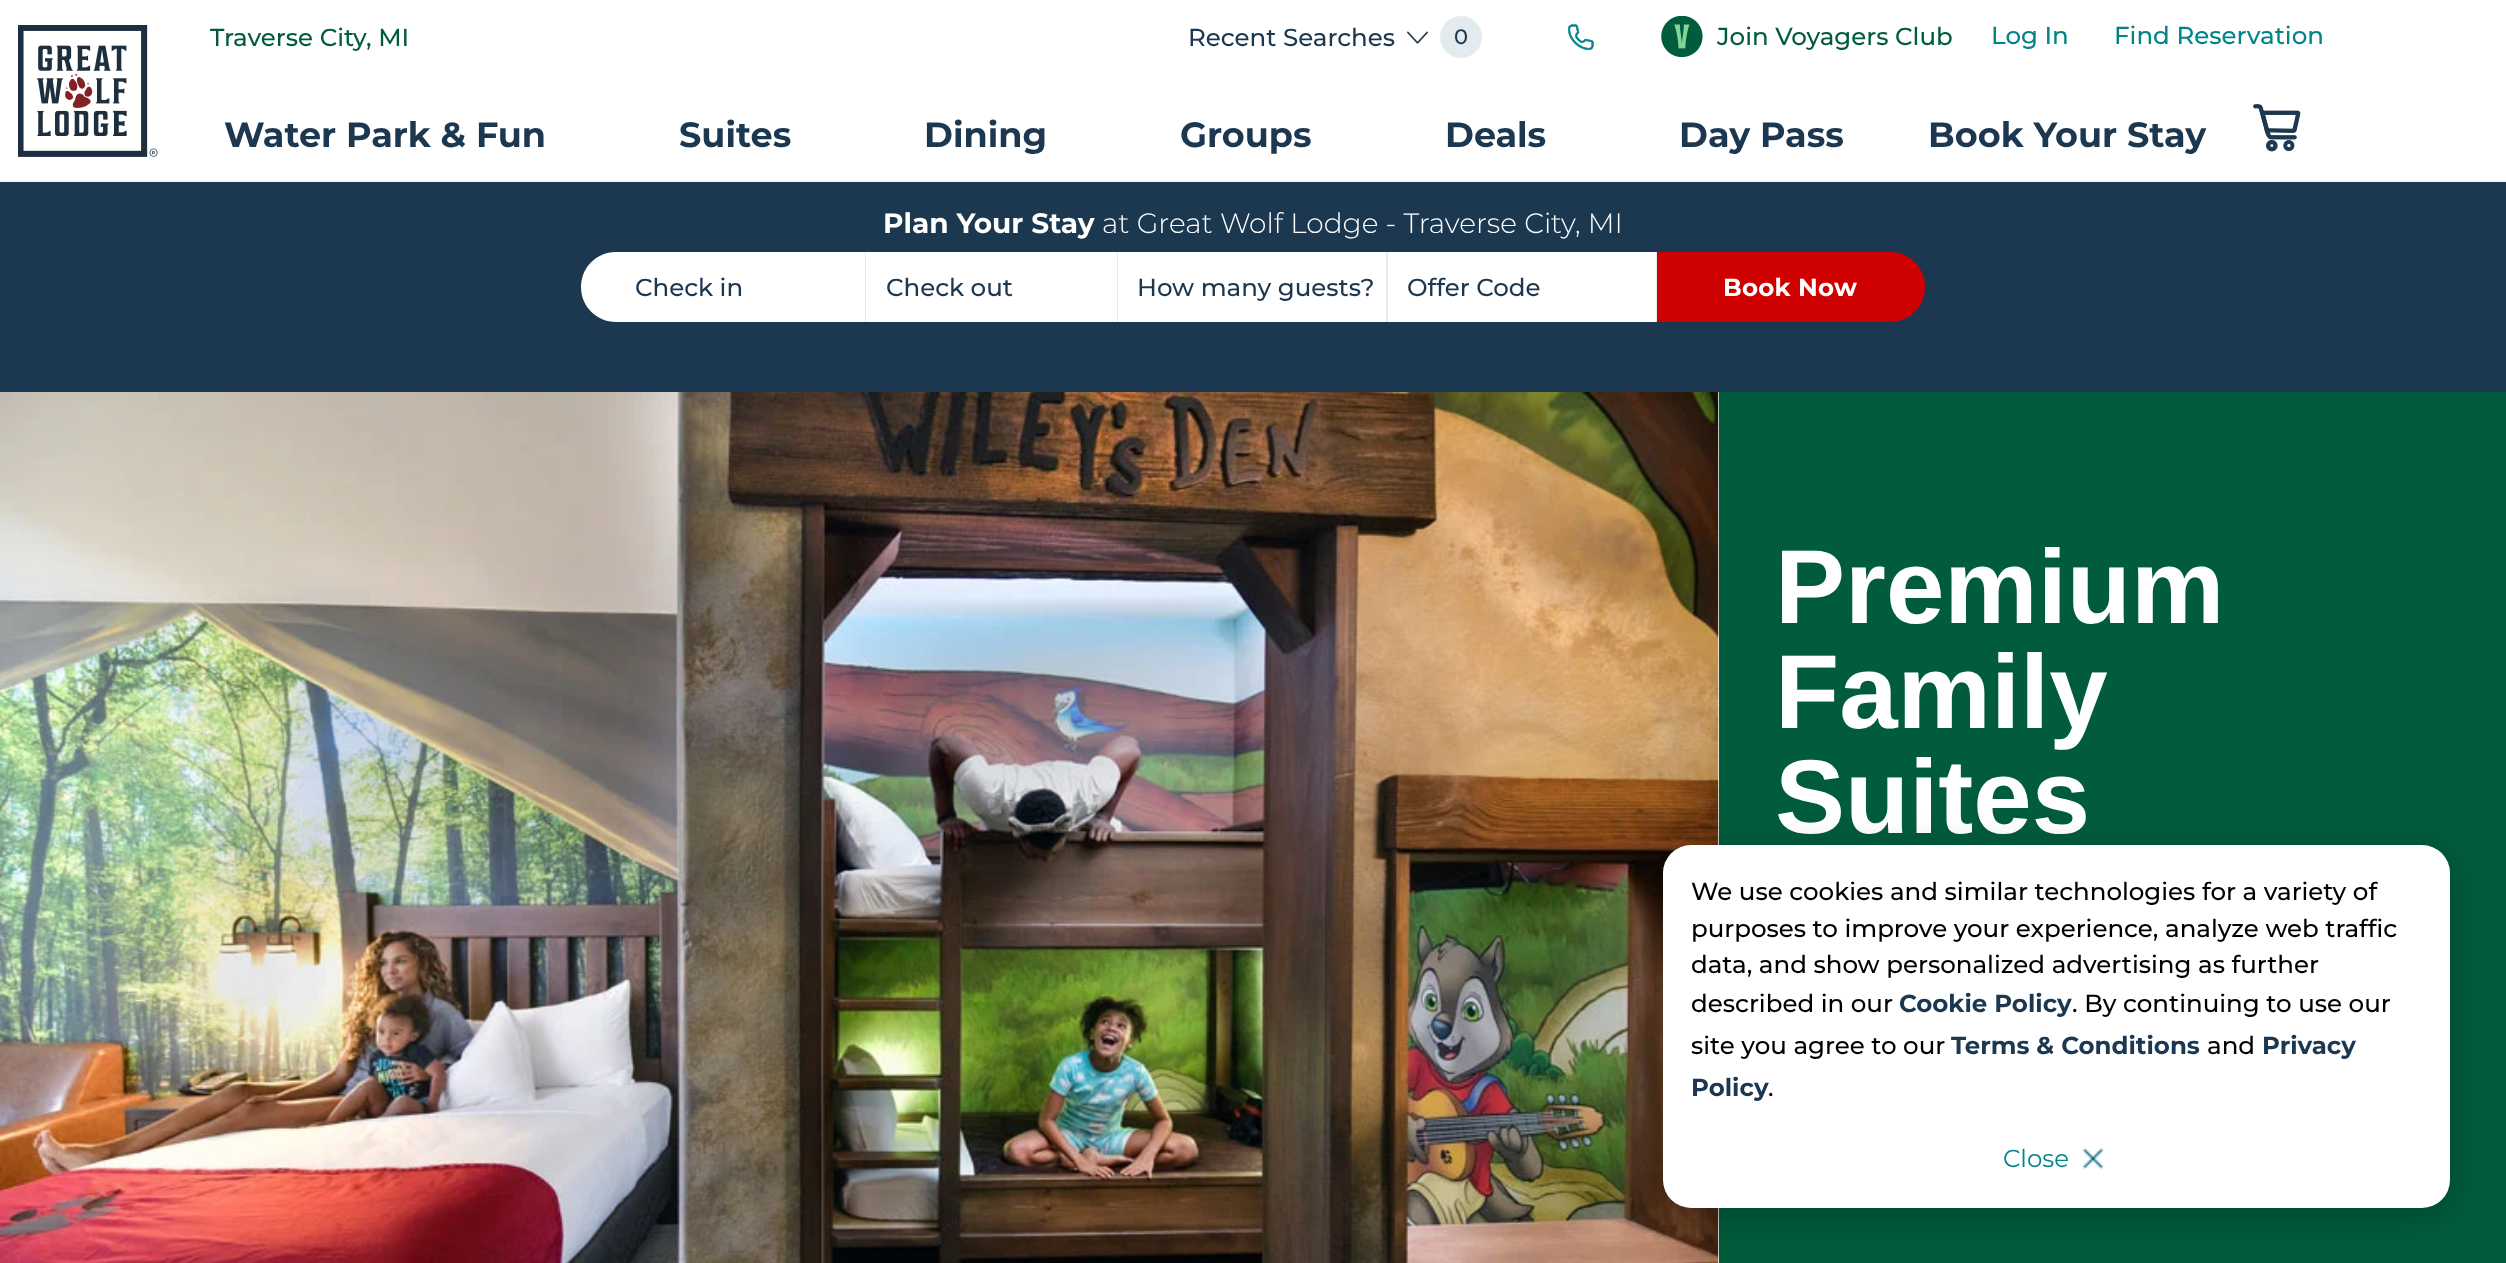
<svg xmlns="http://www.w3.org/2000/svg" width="2506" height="1263">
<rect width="100%" height="100%" fill="#fff"/>
<rect y="180" width="2506" height="2" fill="#f1f5f6"/>
<image x="18" y="25" width="140" height="132" href="media/1.png"/>
<text x="210" y="46" style="font-family:Montserrat;font-size:24.5px;font-weight:500;fill:#005c3c">Traverse City, MI</text>
<text x="1188" y="46" style="font-family:Montserrat;font-size:24.5px;font-weight:500;fill:#1c3750">Recent Searches</text>
<image x="1407" y="31" width="21" height="13" href="media/2.png"/>
<circle cx="1461" cy="37" r="21" fill="#e4ebee"/>
<text x="1454" y="44" style="font-family:Montserrat;font-size:21px;font-weight:500;fill:#1c3750">0</text>
<image x="1567" y="24" width="27" height="27" href="media/3.png"/>
<image x="1661" y="16" width="42" height="41" href="media/4.png"/>
<text x="1717" y="45" style="font-family:Montserrat;font-size:24.5px;font-weight:500;fill:#005c3c">Join Voyagers Club</text>
<text x="1991" y="44" style="font-family:Montserrat;font-size:24.5px;font-weight:500;fill:#008489">Log In</text>
<text x="2114" y="44" style="font-family:Montserrat;font-size:24.5px;font-weight:500;fill:#008489">Find Reservation</text>
<text x="224" y="147" style="font-family:Montserrat;font-size:35px;font-weight:bold;fill:#1c3750">Water Park &amp; Fun</text>
<text x="679" y="147" style="font-family:Montserrat;font-size:35px;font-weight:bold;fill:#1c3750">Suites</text>
<text x="924" y="147" style="font-family:Montserrat;font-size:35px;font-weight:bold;fill:#1c3750">Dining</text>
<text x="1180" y="147" style="font-family:Montserrat;font-size:35px;font-weight:bold;fill:#1c3750">Groups</text>
<text x="1445" y="147" style="font-family:Montserrat;font-size:35px;font-weight:bold;fill:#1c3750">Deals</text>
<text x="1679" y="147" style="font-family:Montserrat;font-size:35px;font-weight:bold;fill:#1c3750">Day Pass</text>
<text x="1928" y="147" style="font-family:Montserrat;font-size:35px;font-weight:bold;fill:#1c3750">Book Your Stay</text>
<image x="2253" y="104" width="48" height="48" href="media/5.png"/>
<rect y="182" width="2506" height="210" fill="#1c3750"/>
<text x="883" y="233" style="font-family:Montserrat;font-size:28px;font-weight:bold;fill:#fff">Plan Your Stay</text>
<text x="1102" y="233" style="font-family:Montserrat;font-size:28px;font-weight:300;fill:#fff">at Great Wolf Lodge - Traverse City, MI</text>
<path d="M616 252h502v70h-502c-19.5 0-35-15.5-35-35c0-19.5 15.5-35 35-35z" fill="#fff"/>
<rect x="865" y="252" width="1" height="70" fill="#e4ebee"/>
<text x="635" y="296" style="font-family:Montserrat;font-size:24.5px;font-weight:500;fill:#1c3750">Check in</text>
<rect x="1117" y="252" width="1" height="70" fill="#e4ebee"/>
<text x="886" y="296" style="font-family:Montserrat;font-size:24.5px;font-weight:500;fill:#1c3750">Check out</text>
<rect x="1118" y="252" width="268" height="70" fill="#fff"/>
<rect x="1386" y="252" width="2" height="70" fill="#e4ebee"/>
<text x="1137" y="296" style="font-family:Montserrat;font-size:24.5px;font-weight:500;fill:#1c3750">How many guests?</text>
<rect x="1388" y="252" width="268" height="70" fill="#fff"/>
<rect x="1656" y="252" width="1" height="70" fill="#e4ebee"/>
<text x="1407" y="296" style="font-family:Montserrat;font-size:24.5px;font-weight:500;fill:#1c3750">Offer Code</text>
<path d="M1657 252h233c19.5 0 35 15.5 35 35c0 19.5-15.5 35-35 35h-233z" fill="#cf0000"/>
<text x="1723" y="296" style="font-family:Montserrat;font-size:24.5px;font-weight:bold;letter-spacing:0.25px;fill:#fff">Book Now</text>
<image x="0" y="392" width="1719" height="871" href="media/6.png"/>
<rect x="1719" y="392" width="787" height="871" fill="#005c3c"/>
<text x="1775" y="623" style="font-family:Liberation Sans;font-size:105px;font-weight:bold;fill:#fff">Premium</text>
<text x="1775" y="728" style="font-family:Liberation Sans;font-size:105px;font-weight:bold;fill:#fff">Family</text>
<text x="1775" y="833" style="font-family:Liberation Sans;font-size:105px;font-weight:bold;fill:#fff">Suites</text>
<rect x="1663" y="852" width="787" height="363" rx="28" fill="#00000040" filter="blur(17.5px)"/>
<rect x="1663" y="845" width="787" height="363" rx="28" fill="#fff"/>
<text x="1691" y="900" style="font-family:Montserrat;font-size:24.5px;font-weight:500;fill:#000">We use cookies and similar technologies for a variety of</text>
<text x="1691" y="937" style="font-family:Montserrat;font-size:24.5px;font-weight:500;fill:#000">purposes to improve your experience, analyze web traffic</text>
<text x="1691" y="973" style="font-family:Montserrat;font-size:24.5px;font-weight:500;fill:#000">data, and show personalized advertising as further</text>
<text x="1691" y="1012" style="font-family:Montserrat;font-size:24.5px;font-weight:500;fill:#000">described in our</text>
<text x="1899" y="1012" style="font-family:Montserrat;font-size:24.5px;font-weight:bold;fill:#1c3750">Cookie Policy</text>
<text x="2072" y="1012" style="font-family:Montserrat;font-size:24.5px;font-weight:500;fill:#000">. By continuing to use our</text>
<text x="1691" y="1054" style="font-family:Montserrat;font-size:24.5px;font-weight:500;fill:#000">site you agree to our</text>
<text x="1951" y="1054" style="font-family:Montserrat;font-size:24.5px;font-weight:bold;fill:#1c3750">Terms &amp; Conditions</text>
<text x="2207" y="1054" style="font-family:Montserrat;font-size:24.5px;font-weight:500;fill:#000">and</text>
<text x="2262" y="1054" style="font-family:Montserrat;font-size:24.5px;font-weight:bold;fill:#1c3750">Privacy</text>
<text x="1691" y="1096" style="font-family:Montserrat;font-size:24.5px;font-weight:bold;fill:#1c3750">Policy</text>
<text x="1768" y="1096" style="font-family:Montserrat;font-size:24.5px;font-weight:500;fill:#000">.</text>
<text x="2003" y="1167" style="font-family:Montserrat;font-size:24.5px;fill:#008489">Close</text>
<image x="2082" y="1147" width="22" height="23" href="media/7.png"/>
</svg>
